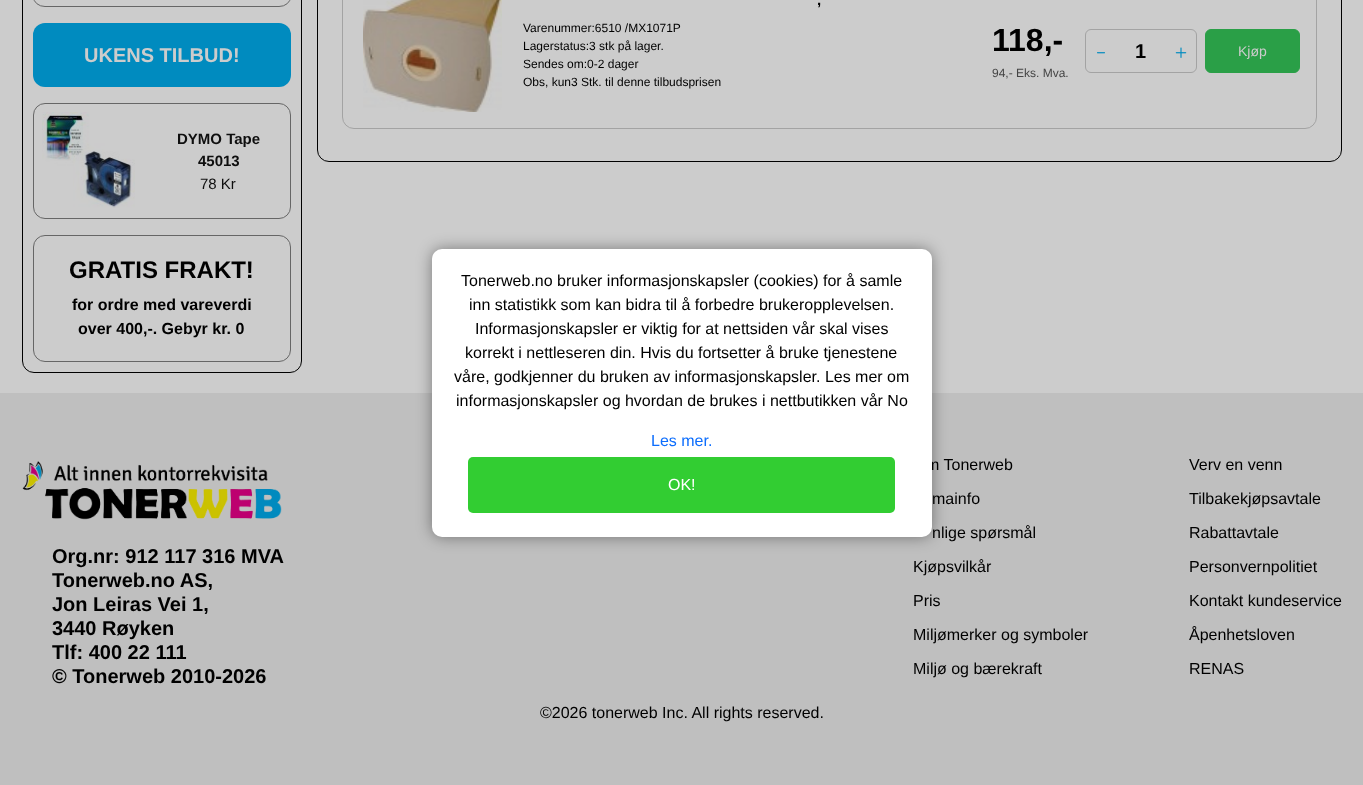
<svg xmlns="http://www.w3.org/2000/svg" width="1363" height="785">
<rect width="100%" height="100%" fill="#ccc"/>
<rect x="22.5" y="-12.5" width="279" height="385" rx="11.5" fill="none" stroke="#000"/>
<rect x="33.5" y="-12.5" width="257" height="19" rx="11.5" fill="none" stroke="#666"/>
<rect x="33" y="23" width="258" height="64" rx="12" fill="#008bbf"/>
<text x="84" y="62" style="font-family:Liberation Sans;font-size:20px;font-weight:bold;fill:#ccc">UKENS TILBUD!</text>
<rect x="33.5" y="103.5" width="257" height="115" rx="11.5" fill="none" stroke="#666"/>
<image x="42" y="112" width="93" height="96" href="media/1.png"/>
<text x="177" y="144" style="font-family:Liberation Sans;font-size:15px;font-weight:bold;fill:#0e0e0e">DYMO Tape</text>
<text x="198" y="166" style="font-family:Liberation Sans;font-size:15px;font-weight:bold;fill:#0e0e0e">45013</text>
<text x="200" y="189" style="font-family:Liberation Sans;font-size:15px;fill:#0e0e0e">78 Kr</text>
<rect x="33.5" y="235.5" width="257" height="126" rx="11.5" fill="none" stroke="#666"/>
<text x="69" y="278" style="font-family:Liberation Sans;font-size:24px;font-weight:bold;fill:#000">GRATIS FRAKT!</text>
<text x="72" y="310" style="font-family:Liberation Sans;font-size:16px;font-weight:bold;fill:#000">for ordre med vareverdi</text>
<text x="78" y="334" style="font-family:Liberation Sans;font-size:16px;font-weight:bold;fill:#000">over 400,-. Gebyr kr. 0</text>
<rect x="317.5" y="-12.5" width="1024" height="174" rx="11.5" fill="none" stroke="#000"/>
<rect x="342.5" y="-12.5" width="974" height="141" rx="11.5" fill="none" stroke="#a3a3a3"/>
<image x="363" y="0" width="139" height="112" href="media/2.png"/>
<text x="817" y="5" style="font-family:Liberation Sans;font-size:15px;font-weight:bold;fill:#000">,</text>
<text x="523" y="32" style="font-family:Liberation Sans;font-size:12px;fill:#000">Varenummer:6510 /MX1071P</text>
<text x="523" y="50" style="font-family:Liberation Sans;font-size:12px;fill:#000">Lagerstatus:3 stk på lager.</text>
<text x="523" y="68" style="font-family:Liberation Sans;font-size:12px;fill:#000">Sendes om:0-2 dager</text>
<text x="523" y="86" style="font-family:Liberation Sans;font-size:12px;fill:#000">Obs, kun3 Stk. til denne tilbudsprisen</text>
<text x="992" y="51" style="font-family:Liberation Sans;font-size:32px;font-weight:bold;fill:#000">118,-</text>
<text x="992" y="77" style="font-family:Liberation Sans;font-size:12px;fill:#454545">94,- Eks. Mva.</text>
<rect x="1085.5" y="29.5" width="111" height="43" rx="5.5" fill="none" stroke="#a3a3a3"/>
<image x="1097" y="52" width="8" height="2" href="media/3.png"/>
<text x="1135" y="58" style="font-family:Liberation Sans;font-size:20px;font-weight:bold;fill:#000">1</text>
<image x="1175" y="47" width="12" height="11" href="media/4.png"/>
<rect x="1205.5" y="29.5" width="94" height="43" rx="5.5" fill="#2a9f47" stroke="#2a9f47"/>
<text x="1238" y="56" style="font-family:Liberation Sans;font-size:14px;fill:#ccc">Kjøp</text>
<rect y="393" width="1363" height="392" fill="#bfbfbf"/>
<rect x="432" y="249" width="500" height="288" rx="10" fill="#00000066" filter="blur(7.5px)"/>
<text x="926" y="470" style="font-family:Liberation Sans;font-size:16px;fill:#000">m Tonerweb</text>
<rect x="432" y="249" width="500" height="288" rx="10" fill="#fff"/>
<text x="461" y="286" style="font-family:Liberation Sans;font-size:16px;fill:#000">Tonerweb.no bruker informasjonskapsler (cookies) for å samle</text>
<text x="469" y="310" style="font-family:Liberation Sans;font-size:16px;fill:#000">inn statistikk som kan bidra til å forbedre brukeropplevelsen.</text>
<text x="475" y="334" style="font-family:Liberation Sans;font-size:16px;fill:#000">Informasjonskapsler er viktig for at nettsiden vår skal vises</text>
<text x="465" y="358" style="font-family:Liberation Sans;font-size:16px;fill:#000">korrekt i nettleseren din. Hvis du fortsetter å bruke tjenestene</text>
<text x="454" y="382" style="font-family:Liberation Sans;font-size:16px;fill:#000">våre, godkjenner du bruken av informasjonskapsler. Les mer om</text>
<text x="456" y="406" style="font-family:Liberation Sans;font-size:16px;fill:#000">informasjonskapsler og hvordan de brukes i nettbutikken vår No</text>
<text x="651" y="446" style="font-family:Liberation Sans;font-size:16px;fill:#0d6efd">Les mer.</text>
<rect x="468" y="457" width="427" height="56" rx="5" fill="#32cd32"/>
<text x="668" y="490" style="font-family:Liberation Sans;font-size:16px;fill:#fff">OK!</text>
<image x="22" y="461" width="260" height="59" href="media/5.png"/>
<text x="52" y="563" style="font-family:Liberation Sans;font-size:20px;font-weight:bold;fill:#000">Org.nr: 912 117 316 MVA</text>
<text x="52" y="587" style="font-family:Liberation Sans;font-size:20px;font-weight:bold;fill:#000">Tonerweb.no AS,</text>
<text x="52" y="611" style="font-family:Liberation Sans;font-size:20px;font-weight:bold;fill:#000">Jon Leiras Vei 1,</text>
<text x="52" y="635" style="font-family:Liberation Sans;font-size:20px;font-weight:bold;fill:#000">3440 Røyken</text>
<text x="52" y="659" style="font-family:Liberation Sans;font-size:20px;font-weight:bold;fill:#000">Tlf: 400 22 111</text>
<text x="52" y="683" style="font-family:Liberation Sans;font-size:20px;font-weight:bold;fill:#000">© Tonerweb 2010-2026</text>
<text x="932" y="504" style="font-family:Liberation Sans;font-size:16px;fill:#000">mainfo</text>
<text x="932" y="538" style="font-family:Liberation Sans;font-size:16px;fill:#000">nlige spørsmål</text>
<text x="913" y="572" style="font-family:Liberation Sans;font-size:16px;fill:#000">Kjøpsvilkår</text>
<text x="913" y="606" style="font-family:Liberation Sans;font-size:16px;fill:#000">Pris</text>
<text x="913" y="640" style="font-family:Liberation Sans;font-size:16px;fill:#000">Miljømerker og symboler</text>
<text x="913" y="674" style="font-family:Liberation Sans;font-size:16px;fill:#000">Miljø og bærekraft</text>
<text x="1189" y="470" style="font-family:Liberation Sans;font-size:16px;fill:#000">Verv en venn</text>
<text x="1189" y="504" style="font-family:Liberation Sans;font-size:16px;fill:#000">Tilbakekjøpsavtale</text>
<text x="1189" y="538" style="font-family:Liberation Sans;font-size:16px;fill:#000">Rabattavtale</text>
<text x="1189" y="572" style="font-family:Liberation Sans;font-size:16px;fill:#000">Personvernpolitiet</text>
<text x="1189" y="606" style="font-family:Liberation Sans;font-size:16px;fill:#000">Kontakt kundeservice</text>
<text x="1189" y="640" style="font-family:Liberation Sans;font-size:16px;fill:#000">Åpenhetsloven</text>
<text x="1189" y="674" style="font-family:Liberation Sans;font-size:16px;fill:#000">RENAS</text>
<text x="540" y="718" style="font-family:Liberation Sans;font-size:16px;fill:#000">©2026 tonerweb Inc. All rights reserved.</text>
</svg>
